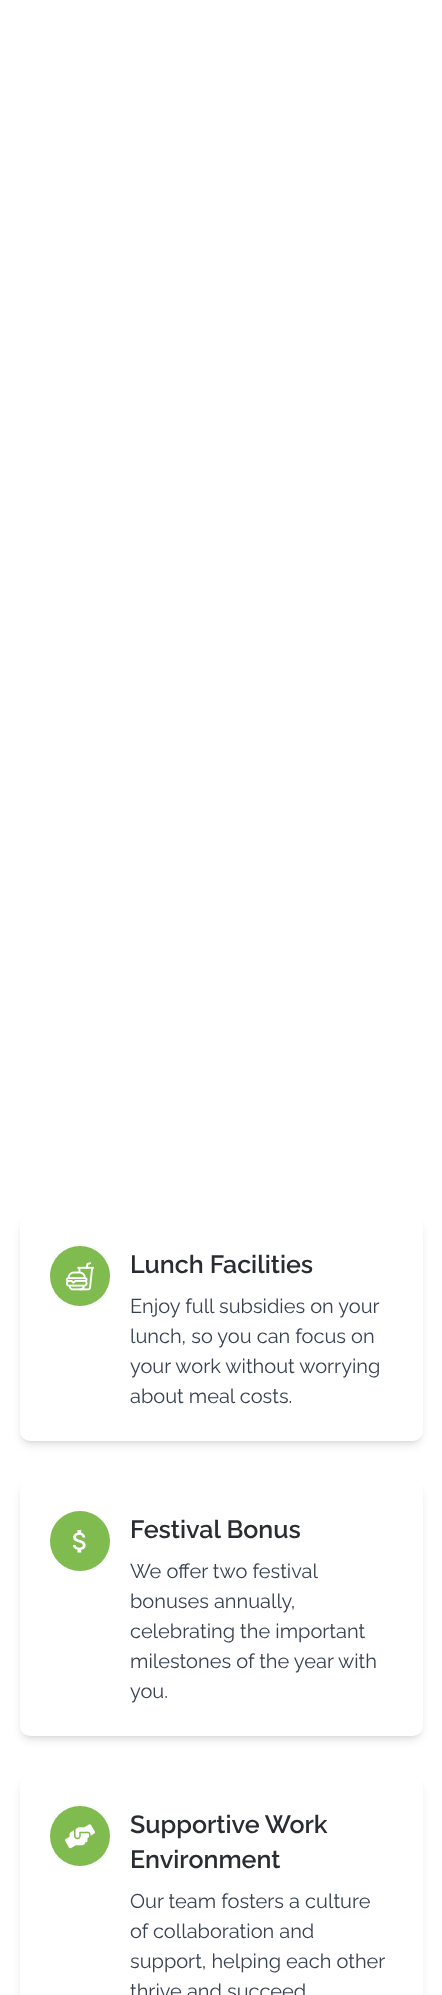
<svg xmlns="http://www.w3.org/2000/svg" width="442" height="1995">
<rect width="100%" height="100%" fill="#fff"/>
<rect x="23" y="1221" width="397" height="220" rx="8" fill="#0000001a" filter="blur(2.5px)"/>
<rect x="21" y="1223" width="400" height="222" rx="9" fill="#0000001a" filter="blur(4px)"/>
<rect x="20" y="1216" width="403" height="225" rx="10" fill="#fff"/>
<circle cx="80" cy="1276" r="30" fill="#80bb50"/>
<image x="65" y="1262" width="30" height="29" href="media/1.png"/>
<text x="130" y="1273" style="font-family:Raleway;font-size:25px;font-weight:600;fill:#292d32">Lunch Facilities</text>
<text x="130" y="1313" style="font-family:Raleway;font-size:20px;fill:#374151">Enjoy full subsidies on your</text>
<text x="130" y="1343" style="font-family:Raleway;font-size:20px;fill:#374151">lunch, so you can focus on</text>
<text x="130" y="1373" style="font-family:Raleway;font-size:20px;fill:#374151">your work without worrying</text>
<text x="130" y="1403" style="font-family:Raleway;font-size:20px;fill:#374151">about meal costs.</text>
<rect x="23" y="1486" width="397" height="250" rx="8" fill="#0000001a" filter="blur(2.5px)"/>
<rect x="21" y="1488" width="400" height="252" rx="9" fill="#0000001a" filter="blur(4px)"/>
<rect x="20" y="1481" width="403" height="255" rx="10" fill="#fff"/>
<circle cx="80" cy="1541" r="30" fill="#80bb50"/>
<image x="72" y="1530" width="14" height="23" href="media/2.png"/>
<text x="130" y="1538" style="font-family:Raleway;font-size:25px;font-weight:600;fill:#292d32">Festival Bonus</text>
<text x="130" y="1578" style="font-family:Raleway;font-size:20px;fill:#374151">We offer two festival</text>
<text x="130" y="1608" style="font-family:Raleway;font-size:20px;fill:#374151">bonuses annually,</text>
<text x="130" y="1638" style="font-family:Raleway;font-size:20px;fill:#374151">celebrating the important</text>
<text x="130" y="1668" style="font-family:Raleway;font-size:20px;fill:#374151">milestones of the year with</text>
<text x="130" y="1698" style="font-family:Raleway;font-size:20px;fill:#374151">you.</text>
<rect x="21" y="1783" width="400" height="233" rx="9" fill="#0000001a" filter="blur(4px)"/>
<rect x="20" y="1776" width="403" height="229" rx="10" fill="#fff"/>
<circle cx="80" cy="1836" r="30" fill="#80bb50"/>
<image x="65" y="1824" width="30" height="25" href="media/3.png"/>
<text x="130" y="1833" style="font-family:Raleway;font-size:25px;font-weight:600;fill:#292d32">Supportive Work</text>
<text x="130" y="1868" style="font-family:Raleway;font-size:25px;font-weight:600;fill:#292d32">Environment</text>
<text x="130" y="1908" style="font-family:Raleway;font-size:20px;fill:#374151">Our team fosters a culture</text>
<text x="130" y="1938" style="font-family:Raleway;font-size:20px;fill:#374151">of collaboration and</text>
<text x="130" y="1968" style="font-family:Raleway;font-size:20px;fill:#374151">support, helping each other</text>
<text x="130" y="1998" style="font-family:Raleway;font-size:20px;fill:#374151">thrive and succeed</text>
</svg>
